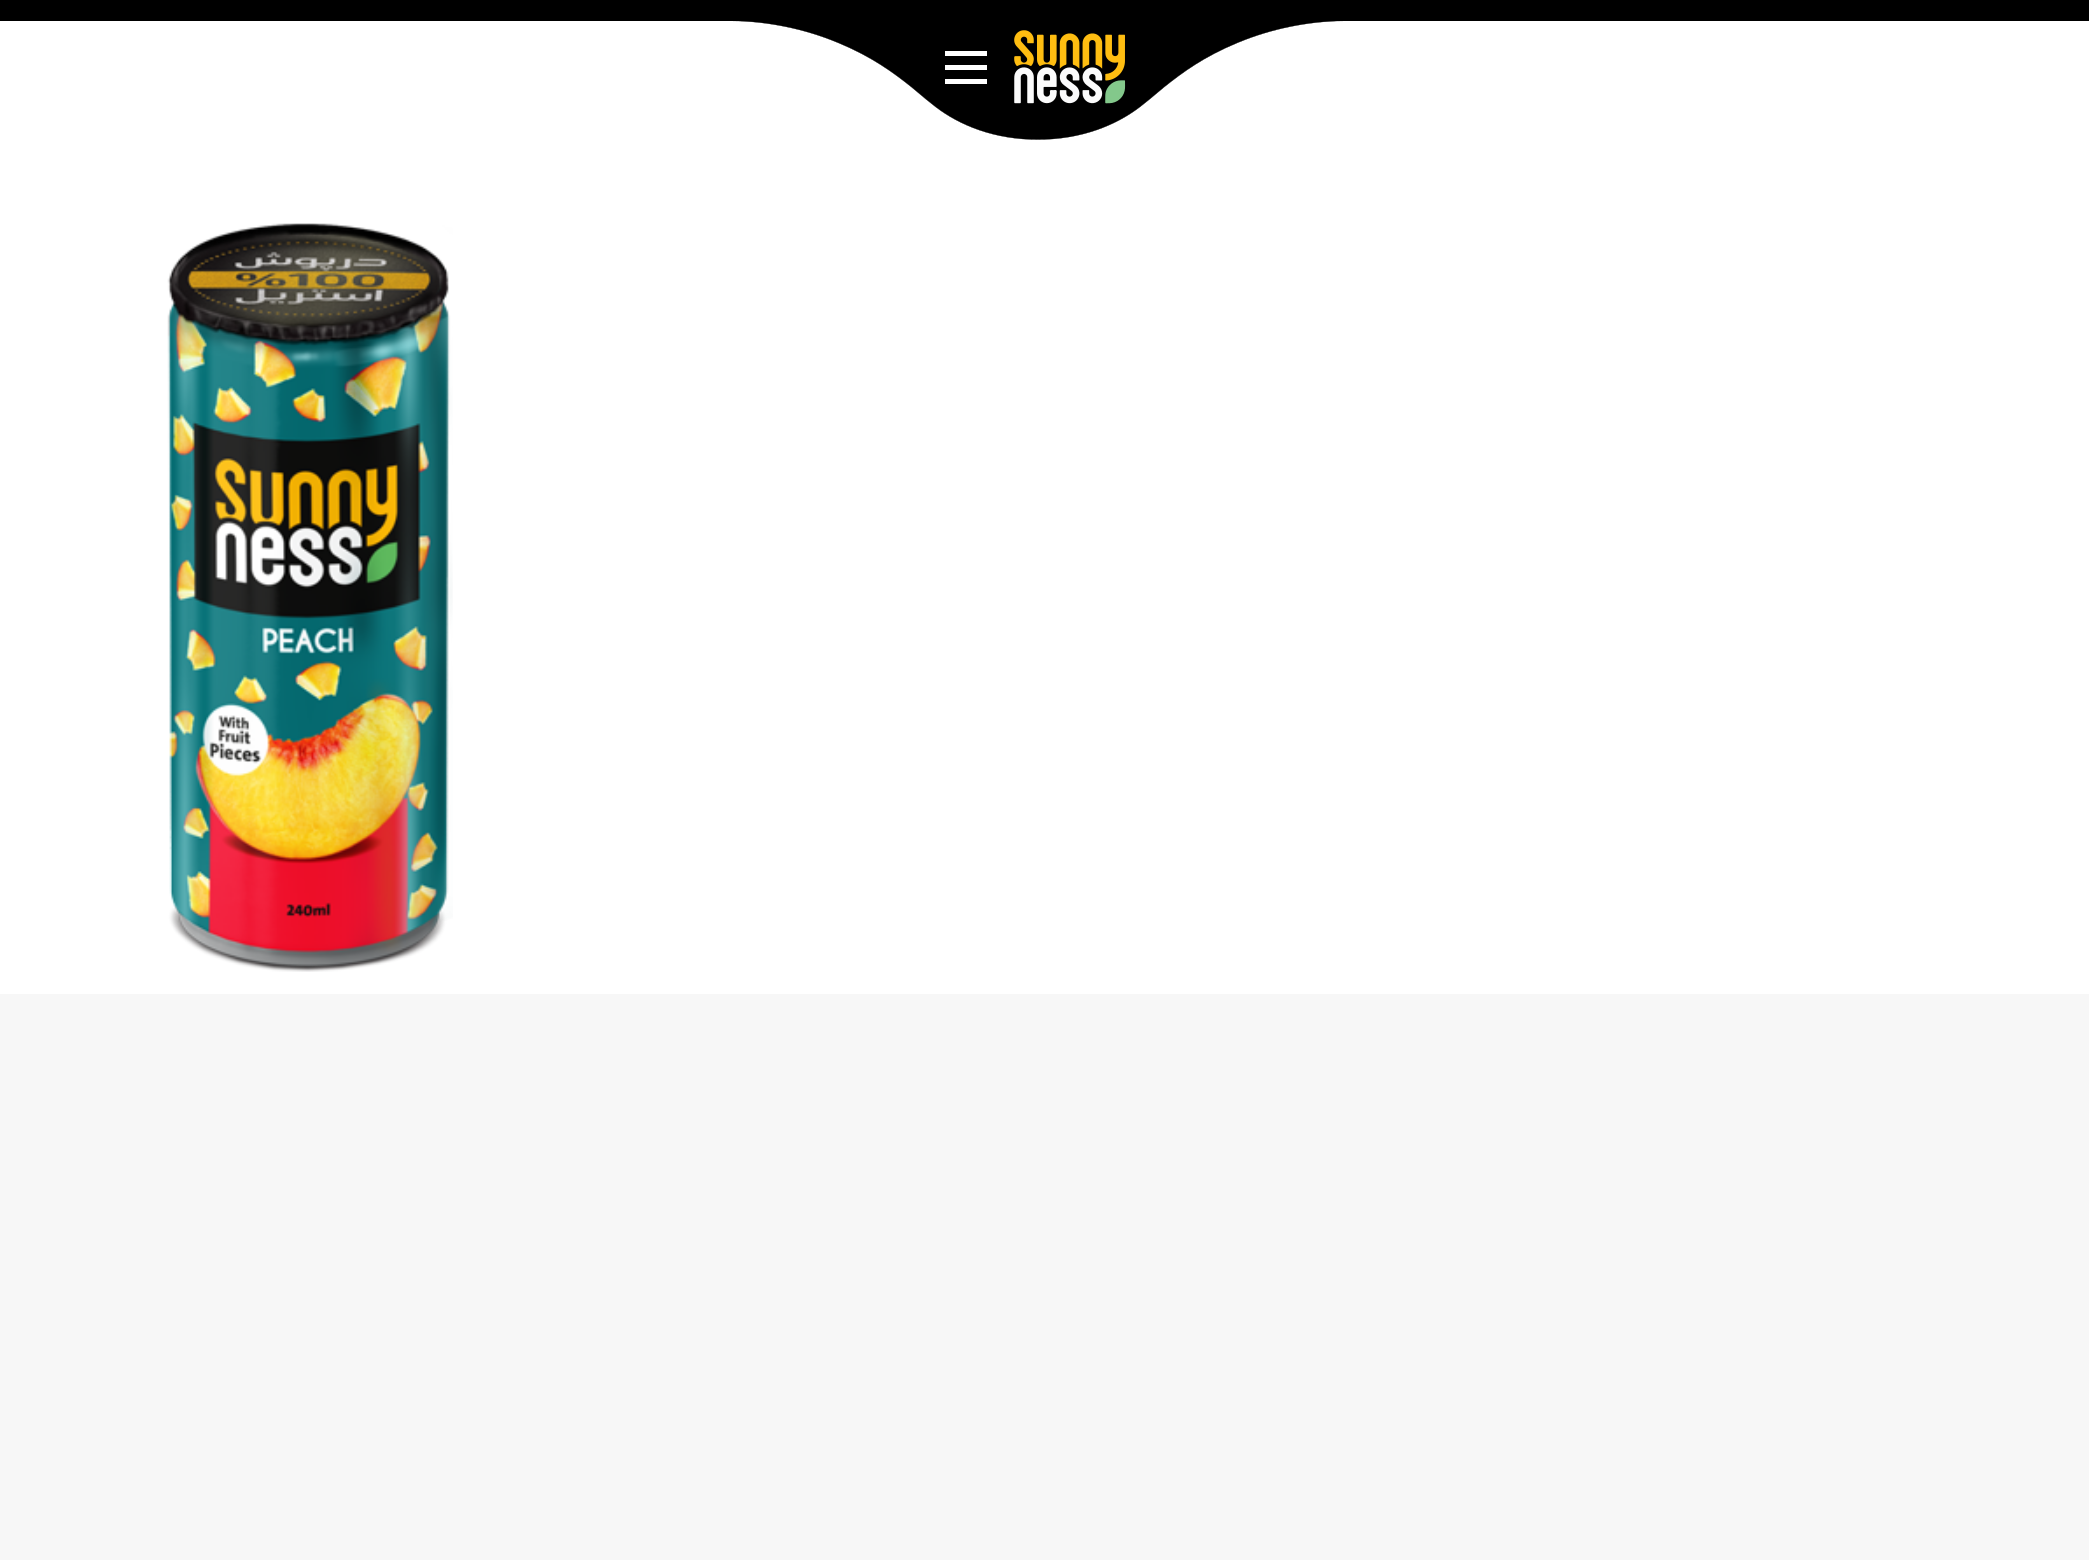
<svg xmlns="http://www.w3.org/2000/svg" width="2089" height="1560">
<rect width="100%" height="100%" fill="#f7f7f7"/>
<rect y="21" width="2089" height="973" fill="#fff"/>
<image x="733" y="21" width="610" height="119" href="media/1.png"/>
<rect width="2089" height="21" fill="#000"/>
<image x="1014" y="30" width="112" height="74" href="media/2.png"/>
<rect x="945" y="65" width="42" height="5" fill="#fff"/>
<rect x="945" y="51" width="42" height="5" fill="#fff"/>
<rect x="945" y="79" width="42" height="5" fill="#fff"/>
<image x="167" y="223" width="286" height="749" href="media/3.png"/>
</svg>
